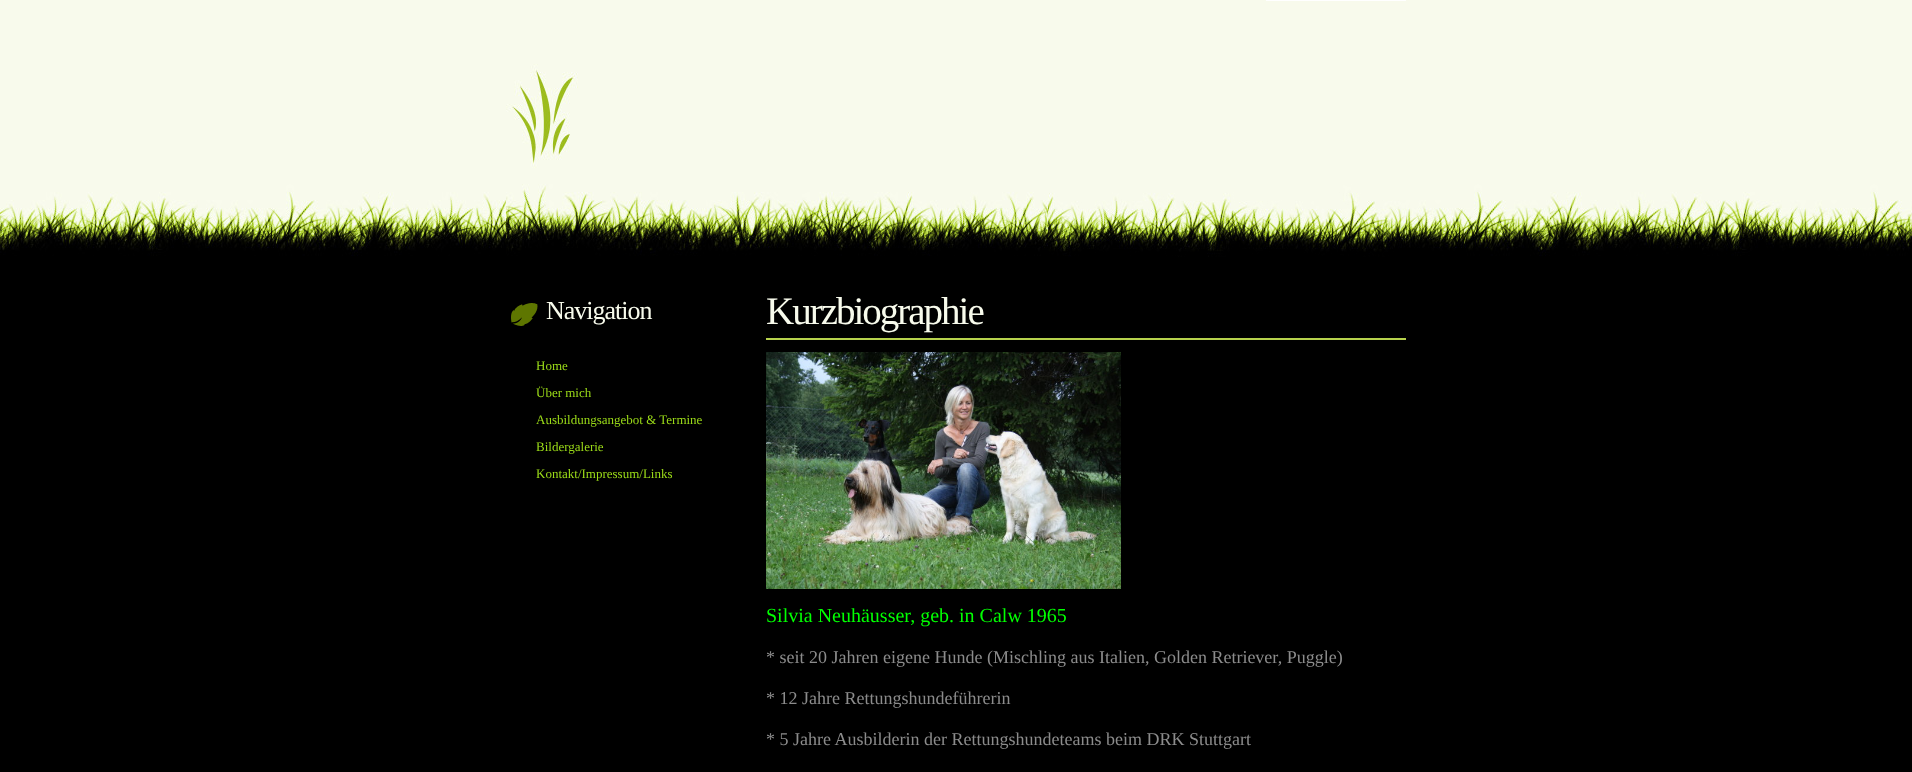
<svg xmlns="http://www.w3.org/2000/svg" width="1912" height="772">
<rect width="100%" height="100%" fill="#000"/>
<image x="0" y="0" width="1912" height="256" href="media/1.png"/>
<image x="506" y="0" width="900" height="257" href="media/2.png"/>
<image x="511" y="303" width="27" height="23" href="media/3.png"/>
<text x="546" y="319" style="font-family:Liberation Serif;font-size:26px;letter-spacing:-1px;fill:#f8fbec">Navigation</text>
<text x="536" y="370" style="font-family:Liberation Serif;font-size:13px;fill:#9bdb18">Home</text>
<text x="536" y="397" style="font-family:Liberation Serif;font-size:13px;fill:#9bdb18">Über mich</text>
<text x="536" y="424" style="font-family:Liberation Serif;font-size:13px;fill:#9bdb18">Ausbildungsangebot &amp; Termine</text>
<text x="536" y="451" style="font-family:Liberation Serif;font-size:13px;fill:#9bdb18">Bildergalerie</text>
<text x="536" y="478" style="font-family:Liberation Serif;font-size:13px;fill:#9bdb18">Kontakt/Impressum/Links</text>
<rect x="766" y="338" width="640" height="2" fill="#b7d24d"/>
<text x="766" y="324" style="font-family:Liberation Serif;font-size:39px;letter-spacing:-2px;fill:#f8fbec">Kurzbiographie</text>
<image x="766" y="352" width="355" height="237" href="media/4.png"/>
<text x="766" y="622" style="font-family:Liberation Serif;font-size:20px;fill:#0f0">Silvia Neuhäusser, geb. in Calw 1965</text>
<text x="766" y="663" style="font-family:Liberation Serif;font-size:18px;fill:#8c8c8c">* seit 20 Jahren eigene Hunde (Mischling aus Italien, Golden Retriever, Puggle)</text>
<text x="766" y="704" style="font-family:Liberation Serif;font-size:18px;fill:#8c8c8c">* 12 Jahre Rettungshundeführerin</text>
<text x="766" y="745" style="font-family:Liberation Serif;font-size:18px;fill:#8c8c8c">* 5 Jahre Ausbilderin der Rettungshundeteams beim DRK Stuttgart</text>
</svg>
